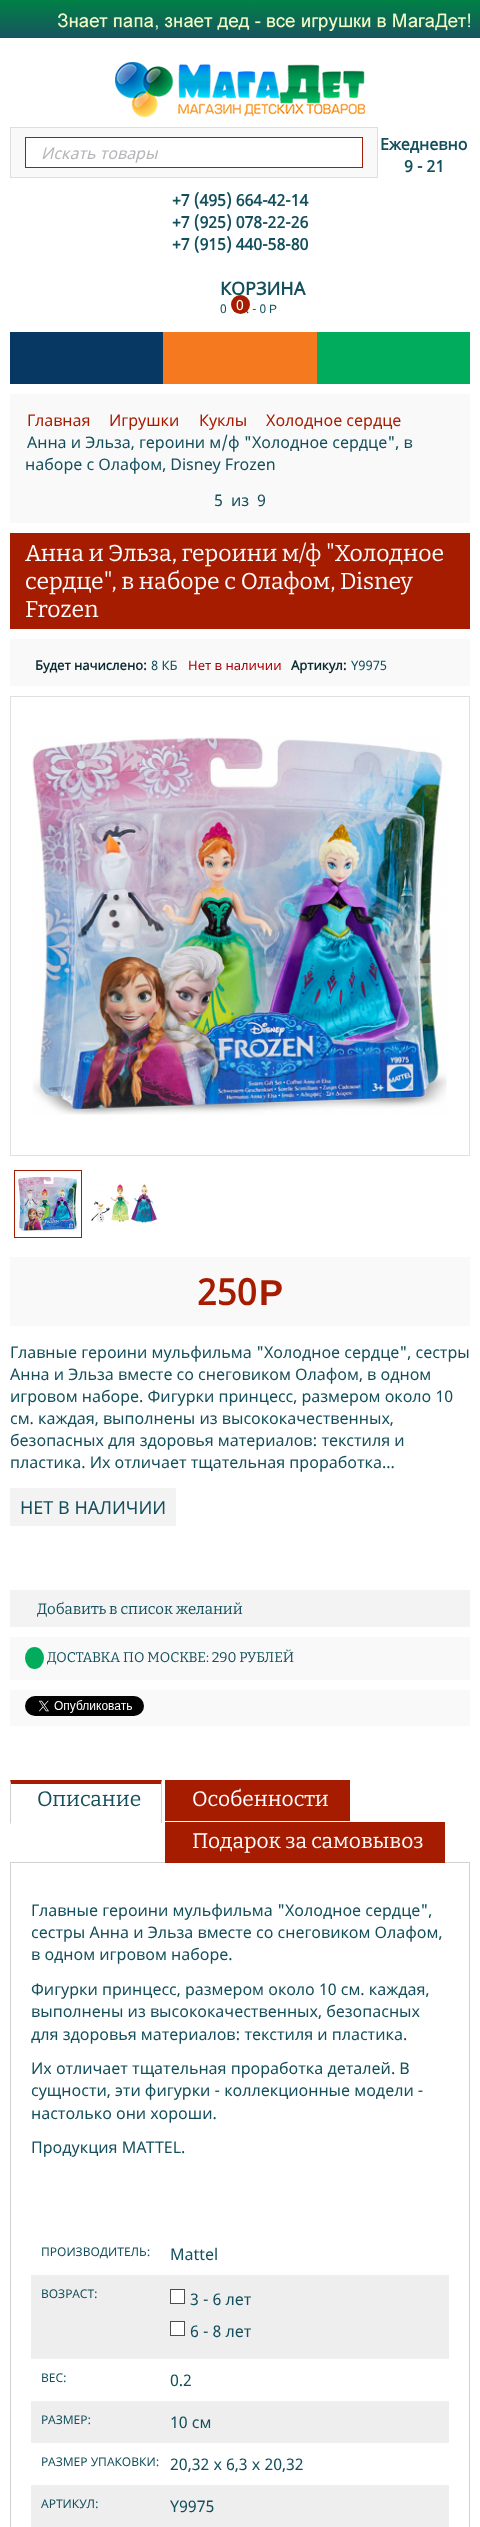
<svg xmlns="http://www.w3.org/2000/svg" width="480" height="2527">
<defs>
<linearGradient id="g1" gradientUnits="userSpaceOnUse" x1="240" y1="0" x2="240" y2="38"><stop offset="0" stop-color="#008145"/><stop offset="1" stop-color="#185460"/></linearGradient>
</defs>
<rect width="100%" height="100%" fill="#fff"/>
<rect width="480" height="38" fill="url(#g1)"/>
<image x="58" y="13" width="412" height="18" href="media/1.png"/>
<image x="115" y="62" width="250" height="55" href="media/2.png"/>
<rect x="10.5" y="127.5" width="367" height="50" fill="#f9f9f9" stroke="#dedede"/>
<rect x="25.5" y="137.5" width="337" height="30" fill="#fff" stroke="#a61c00"/>
<text x="41" y="159" style="font-family:Noto Sans;font-size:16px;font-style:italic;fill:#b5b5b9">Искать товары</text>
<text x="380" y="150" style="font-family:Noto Sans;font-size:16px;font-weight:bold;fill:#134f5c">Ежедневно</text>
<text x="404" y="172" style="font-family:Noto Sans;font-size:16px;font-weight:bold;fill:#134f5c">9 - 21</text>
<text x="172" y="206" style="font-family:Noto Sans;font-size:16px;font-weight:bold;fill:#134f5c">+7 (495) 664-42-14</text>
<text x="172" y="228" style="font-family:Noto Sans;font-size:16px;font-weight:bold;fill:#134f5c">+7 (925) 078-22-26</text>
<text x="172" y="250" style="font-family:Noto Sans;font-size:16px;font-weight:bold;fill:#134f5c">+7 (915) 440-58-80</text>
<text x="220" y="295" style="font-family:Noto Sans;font-size:18px;font-weight:bold;fill:#134f5c">КОРЗИНА</text>
<text x="246" y="313" style="font-family:Noto Sans;font-size:12px;fill:#134f5c">. - 0</text>
<circle cx="240.5" cy="304.5" r="9.5" fill="#a61c00"/>
<text x="236" y="310" style="font-family:Noto Sans;font-size:14px;fill:#fff">0</text>
<text x="220" y="313" style="font-family:Noto Sans;font-size:12px;fill:#134f5c">0</text>
<text x="269" y="313" style="font-family:Liberation Sans;font-size:12px;fill:#134f5c">Р</text>
<rect x="10" y="332" width="153" height="52" fill="#073763"/>
<rect x="163" y="332" width="154" height="52" fill="#f5791f"/>
<rect x="317" y="332" width="153" height="52" fill="#01ad5d"/>
<rect x="10" y="394" width="460" height="129" fill="#f9f9f9"/>
<text x="27" y="426" style="font-family:Noto Sans;font-size:16px;fill:#a61c00">Главная</text>
<text x="109" y="426" style="font-family:Noto Sans;font-size:16px;fill:#a61c00">Игрушки</text>
<text x="199" y="426" style="font-family:Noto Sans;font-size:16px;fill:#a61c00">Куклы</text>
<text x="266" y="426" style="font-family:Noto Sans;font-size:16px;fill:#a61c00">Холодное сердце</text>
<text x="27" y="448" style="font-family:Noto Sans;font-size:16px;fill:#134f5c">Анна и Эльза, героини м/ф "Холодное сердце", в</text>
<text x="25" y="470" style="font-family:Noto Sans;font-size:16px;fill:#134f5c">наборе с Олафом, Disney Frozen</text>
<text x="214" y="506" style="font-family:Noto Sans;font-size:16px;fill:#134f5c">5</text>
<text x="231" y="506" style="font-family:Noto Sans;font-size:16px;fill:#134f5c">из</text>
<text x="257" y="506" style="font-family:Noto Sans;font-size:16px;fill:#134f5c">9</text>
<rect x="10" y="533" width="460" height="96" fill="#a61c00"/>
<text x="25" y="561" style="font-family:Bitter;font-size:23px;fill:#fff">Анна и Эльза, героини м/ф "Холодное</text>
<text x="25" y="589" style="font-family:Bitter;font-size:23px;fill:#fff">сердце", в наборе с Олафом, Disney</text>
<text x="25" y="617" style="font-family:Bitter;font-size:23px;fill:#fff">Frozen</text>
<rect x="10" y="639" width="460" height="47" fill="#f9f9f9"/>
<text x="35" y="670" style="font-family:Noto Sans;font-size:13px;font-weight:bold;fill:#0a2b32">Будет начислено:</text>
<text x="151" y="670" style="font-family:Noto Sans;font-size:13px;fill:#134f5c">8 КБ</text>
<text x="188" y="670" style="font-family:Noto Sans;font-size:13px;fill:#a80006">Нет в наличии</text>
<text x="291" y="670" style="font-family:Noto Sans;font-size:13px;font-weight:bold;fill:#0a2b32">Артикул:</text>
<text x="351" y="670" style="font-family:Noto Sans;font-size:13px;fill:#134f5c">Y9975</text>
<rect x="10.5" y="696.5" width="459" height="459" fill="none" stroke="#e3dfdf"/>
<image x="32" y="737" width="415" height="378" href="media/3.png"/>
<rect x="14.5" y="1170.5" width="67" height="67" fill="none" stroke="#a61c00"/>
<image x="18" y="1177" width="60" height="54" href="media/4.png"/>
<image x="91" y="1184" width="66" height="39" href="media/5.png"/>
<rect x="10" y="1257" width="460" height="69" fill="#f9f9f9"/>
<text x="197" y="1305" style="font-family:Noto Sans;font-size:36px;font-weight:bold;fill:#a61c00">250</text>
<text x="259" y="1305" style="font-family:Liberation Sans;font-size:36px;font-weight:bold;fill:#a61c00">Р</text>
<text x="10" y="1358" style="font-family:Noto Sans;font-size:16px;fill:#134f5c">Главные героини мульфильма "Холодное сердце", сестры</text>
<text x="10" y="1380" style="font-family:Noto Sans;font-size:16px;fill:#134f5c">Анна и Эльза вместе со снеговиком Олафом, в одном</text>
<text x="10" y="1402" style="font-family:Noto Sans;font-size:16px;fill:#134f5c">игровом наборе. Фигурки принцесс, размером около 10</text>
<text x="10" y="1424" style="font-family:Noto Sans;font-size:16px;fill:#134f5c">см. каждая, выполнены из высококачественных,</text>
<text x="10" y="1446" style="font-family:Noto Sans;font-size:16px;fill:#134f5c">безопасных для здоровья материалов: текстиля и</text>
<text x="10" y="1468" style="font-family:Noto Sans;font-size:16px;fill:#134f5c">пластика. Их отличает тщательная проработка...</text>
<rect x="10" y="1488" width="166" height="38" fill="#f3f3f3"/>
<text x="20" y="1514" style="font-family:Noto Sans;font-size:18px;fill:#134f5c">НЕТ В НАЛИЧИИ</text>
<rect x="10" y="1590" width="460" height="37" fill="#f3f3f3"/>
<text x="37" y="1614" style="font-family:Bitter;font-size:15px;fill:#134f5c">Добавить в список желаний</text>
<rect x="10" y="1637" width="460" height="43" fill="#f9f9f9"/>
<ellipse cx="34.5" cy="1658" rx="9.5" ry="11" fill="#01ad5d"/>
<text x="47" y="1662" style="font-family:Bitter;font-size:14px;fill:#134f5c">ДОСТАВКА ПО МОСКВЕ: 290 РУБЛЕЙ</text>
<rect x="10" y="1690" width="460" height="36" fill="#f9f9f9"/>
<image x="25" y="1696" width="119" height="20" href="media/6.png"/>
<rect x="10" y="1862" width="460" height="1" fill="#d2d1cf"/>
<path d="M10 1780h152l-1 4h-150z" fill="#a61c00"/>
<path d="M162 1780v44l-1-1v-39z" fill="#d2d1cf"/>
<rect x="161" y="1823" width="1" height="1" fill="#fff"/>
<path d="M10 1824v-44l1 4v39z" fill="#d2d1cf"/>
<text x="37" y="1806" style="font-family:Bitter;font-size:21px;fill:#134f5c">Описание</text>
<rect x="165" y="1780" width="185" height="41" fill="#a61c00"/>
<text x="192" y="1806" style="font-family:Bitter;font-size:21px;fill:#fff">Особенности</text>
<rect x="165" y="1822" width="280" height="41" fill="#a61c00"/>
<text x="192" y="1848" style="font-family:Bitter;font-size:21px;fill:#fff">Подарок за самовывоз</text>
<rect x="469" y="1863" width="1" height="664" fill="#d2d1cf"/>
<rect x="10" y="1863" width="1" height="664" fill="#d2d1cf"/>
<text x="31" y="1916" style="font-family:Noto Sans;font-size:16px;fill:#134f5c">Главные героини мульфильма "Холодное сердце",</text>
<text x="31" y="1938" style="font-family:Noto Sans;font-size:16px;fill:#134f5c">сестры Анна и Эльза вместе со снеговиком Олафом,</text>
<text x="31" y="1960" style="font-family:Noto Sans;font-size:16px;fill:#134f5c">в одном игровом наборе.</text>
<text x="31" y="1995" style="font-family:Noto Sans;font-size:16px;fill:#134f5c">Фигурки принцесс, размером около 10 см. каждая,</text>
<text x="31" y="2017" style="font-family:Noto Sans;font-size:16px;fill:#134f5c">выполнены из высококачественных, безопасных</text>
<text x="31" y="2040" style="font-family:Noto Sans;font-size:16px;fill:#134f5c">для здоровья материалов: текстиля и пластика.</text>
<text x="31" y="2074" style="font-family:Noto Sans;font-size:16px;fill:#134f5c">Их отличает тщательная проработка деталей. В</text>
<text x="31" y="2096" style="font-family:Noto Sans;font-size:16px;fill:#134f5c">сущности, эти фигурки - коллекционные модели -</text>
<text x="31" y="2119" style="font-family:Noto Sans;font-size:16px;fill:#134f5c">настолько они хороши.</text>
<text x="31" y="2153" style="font-family:Noto Sans;font-size:16px;fill:#134f5c">Продукция MATTEL.</text>
<text x="41" y="2256" style="font-family:Noto Sans;font-size:12px;fill:#134f5c">ПРОИЗВОДИТЕЛЬ:</text>
<text x="170" y="2260" style="font-family:Noto Sans;font-size:16px;fill:#134f5c">Mattel</text>
<rect x="31" y="2275" width="418" height="84" fill="#eeeeef"/>
<text x="41" y="2298" style="font-family:Noto Sans;font-size:12px;fill:#134f5c">ВОЗРАСТ:</text>
<rect x="170.5" y="2289.5" width="14" height="14" fill="#fff" stroke="#4d4d4d"/>
<text x="190" y="2305" style="font-family:Noto Sans;font-size:16px;fill:#134f5c">3 - 6 лет</text>
<rect x="170.5" y="2321.5" width="14" height="14" fill="#fff" stroke="#4d4d4d"/>
<text x="190" y="2337" style="font-family:Noto Sans;font-size:16px;fill:#134f5c">6 - 8 лет</text>
<text x="41" y="2382" style="font-family:Noto Sans;font-size:12px;fill:#134f5c">ВЕС:</text>
<text x="170" y="2386" style="font-family:Noto Sans;font-size:16px;fill:#134f5c">0.2</text>
<rect x="31" y="2401" width="418" height="42" fill="#eeeeef"/>
<text x="41" y="2424" style="font-family:Noto Sans;font-size:12px;fill:#134f5c">РАЗМЕР:</text>
<text x="170" y="2428" style="font-family:Noto Sans;font-size:16px;fill:#134f5c">10 см</text>
<text x="41" y="2466" style="font-family:Noto Sans;font-size:12px;fill:#134f5c">РАЗМЕР УПАКОВКИ:</text>
<text x="170" y="2470" style="font-family:Noto Sans;font-size:16px;fill:#134f5c">20,32 х 6,3 х 20,32</text>
<rect x="31" y="2485" width="418" height="42" fill="#eeeeef"/>
<text x="41" y="2508" style="font-family:Noto Sans;font-size:12px;fill:#134f5c">АРТИКУЛ:</text>
<text x="170" y="2512" style="font-family:Noto Sans;font-size:16px;fill:#134f5c">Y9975</text>
</svg>
